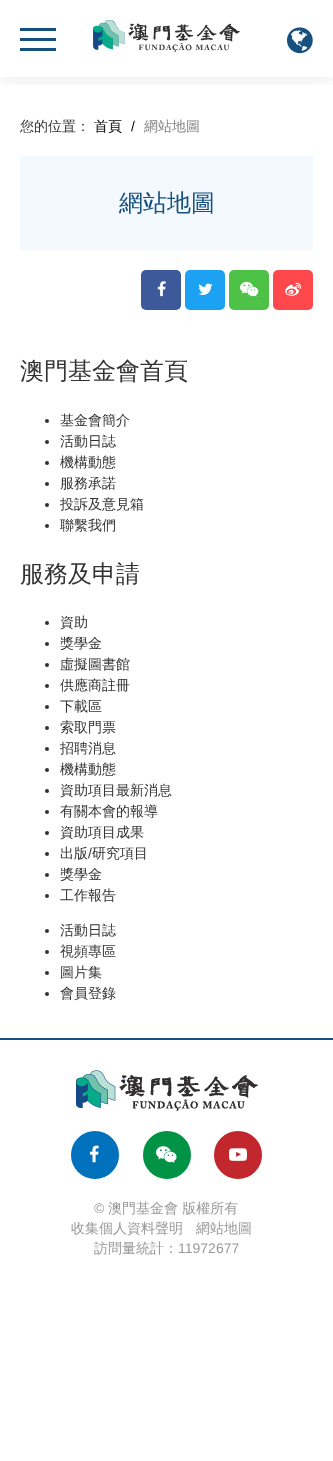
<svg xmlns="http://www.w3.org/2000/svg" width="333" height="1461">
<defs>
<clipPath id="clip1"><rect x="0" y="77" width="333" height="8"/></clipPath>
</defs>
<rect width="100%" height="100%" fill="#fff"/>
<g clip-path="url(#clip1)">
<rect width="333" height="77" fill="#0000001a" filter="blur(10px)"/>
</g>
<rect x="20" y="38" width="36" height="3" fill="#15507f"/>
<rect x="20" y="28" width="36" height="3" fill="#15507f"/>
<rect x="20" y="48" width="36" height="3" fill="#15507f"/>
<image x="93" y="20" width="147" height="32" href="media/1.png"/>
<image x="287" y="27" width="26" height="27" href="media/2.png"/>
<text x="20" y="131" style="font-family:WenQuanYi Zen Hei;font-size:14px;font-weight:500;fill:#333">您的位置：</text>
<text x="94" y="131" style="font-family:WenQuanYi Zen Hei;font-size:14px;font-weight:500;fill:#000">首頁</text>
<text x="131" y="131" style="font-family:Liberation Sans;font-size:14px;fill:#000">/</text>
<text x="144" y="131" style="font-family:WenQuanYi Zen Hei;font-size:14px;font-weight:500;fill:#858585">網站地圖</text>
<rect x="20" y="156" width="293" height="94" fill="#f3f9ff"/>
<text x="119" y="211" style="font-family:WenQuanYi Zen Hei;font-size:24px;font-weight:500;fill:#15507f">網站地圖</text>
<rect x="141" y="270" width="40" height="40" rx="5" fill="#3c5a99"/>
<image x="157" y="281" width="9" height="16" href="media/3.png"/>
<rect x="185" y="270" width="40" height="40" rx="5" fill="#1da1f2"/>
<image x="198" y="283" width="15" height="12" href="media/4.png"/>
<rect x="229" y="270" width="40" height="40" rx="5" fill="#4dc247"/>
<image x="240" y="281" width="19" height="16" href="media/5.png"/>
<rect x="273" y="270" width="40" height="40" rx="5" fill="#fe484c"/>
<image x="285" y="282" width="16" height="14" href="media/6.png"/>
<text x="20" y="379" style="font-family:WenQuanYi Zen Hei;font-size:24px;font-weight:500;fill:#333">澳門基金會首頁</text>
<circle cx="47" cy="421" r="2" fill="#333"/>
<text x="60" y="425" style="font-family:WenQuanYi Zen Hei;font-size:14px;font-weight:500;fill:#333">基金會簡介</text>
<circle cx="47" cy="442" r="2" fill="#333"/>
<text x="60" y="446" style="font-family:WenQuanYi Zen Hei;font-size:14px;font-weight:500;fill:#333">活動日誌</text>
<circle cx="47" cy="463" r="2" fill="#333"/>
<text x="60" y="467" style="font-family:WenQuanYi Zen Hei;font-size:14px;font-weight:500;fill:#333">機構動態</text>
<circle cx="47" cy="484" r="2" fill="#333"/>
<text x="60" y="488" style="font-family:WenQuanYi Zen Hei;font-size:14px;font-weight:500;fill:#333">服務承諾</text>
<circle cx="47" cy="505" r="2" fill="#333"/>
<text x="60" y="509" style="font-family:WenQuanYi Zen Hei;font-size:14px;font-weight:500;fill:#333">投訴及意見箱</text>
<circle cx="47" cy="526" r="2" fill="#333"/>
<text x="60" y="530" style="font-family:WenQuanYi Zen Hei;font-size:14px;font-weight:500;fill:#333">聯繫我們</text>
<text x="20" y="582" style="font-family:WenQuanYi Zen Hei;font-size:24px;font-weight:500;fill:#333">服務及申請</text>
<circle cx="47" cy="623" r="2" fill="#333"/>
<text x="60" y="627" style="font-family:WenQuanYi Zen Hei;font-size:14px;font-weight:500;fill:#333">資助</text>
<circle cx="47" cy="644" r="2" fill="#333"/>
<text x="60" y="648" style="font-family:WenQuanYi Zen Hei;font-size:14px;font-weight:500;fill:#333">獎學金</text>
<circle cx="47" cy="665" r="2" fill="#333"/>
<text x="60" y="669" style="font-family:WenQuanYi Zen Hei;font-size:14px;font-weight:500;fill:#333">虛擬圖書館</text>
<circle cx="47" cy="686" r="2" fill="#333"/>
<text x="60" y="690" style="font-family:WenQuanYi Zen Hei;font-size:14px;font-weight:500;fill:#333">供應商註冊</text>
<circle cx="47" cy="707" r="2" fill="#333"/>
<text x="60" y="711" style="font-family:WenQuanYi Zen Hei;font-size:14px;font-weight:500;fill:#333">下載區</text>
<circle cx="47" cy="728" r="2" fill="#333"/>
<text x="60" y="732" style="font-family:WenQuanYi Zen Hei;font-size:14px;font-weight:500;fill:#333">索取門票</text>
<circle cx="47" cy="749" r="2" fill="#333"/>
<text x="60" y="753" style="font-family:WenQuanYi Zen Hei;font-size:14px;font-weight:500;fill:#333">招聘消息</text>
<circle cx="47" cy="770" r="2" fill="#333"/>
<text x="60" y="774" style="font-family:WenQuanYi Zen Hei;font-size:14px;font-weight:500;fill:#333">機構動態</text>
<circle cx="47" cy="791" r="2" fill="#333"/>
<text x="60" y="795" style="font-family:WenQuanYi Zen Hei;font-size:14px;font-weight:500;fill:#333">資助項目最新消息</text>
<circle cx="47" cy="812" r="2" fill="#333"/>
<text x="60" y="816" style="font-family:WenQuanYi Zen Hei;font-size:14px;font-weight:500;fill:#333">有關本會的報導</text>
<circle cx="47" cy="833" r="2" fill="#333"/>
<text x="60" y="837" style="font-family:WenQuanYi Zen Hei;font-size:14px;font-weight:500;fill:#333">資助項目成果</text>
<circle cx="47" cy="854" r="2" fill="#333"/>
<text x="60" y="858" style="font-family:WenQuanYi Zen Hei;font-size:14px;font-weight:500;fill:#333">出版</text>
<text x="88" y="858" style="font-family:Liberation Sans;font-size:14px;fill:#333">/</text>
<text x="92" y="858" style="font-family:WenQuanYi Zen Hei;font-size:14px;font-weight:500;fill:#333">研究項目</text>
<circle cx="47" cy="875" r="2" fill="#333"/>
<text x="60" y="879" style="font-family:WenQuanYi Zen Hei;font-size:14px;font-weight:500;fill:#333">獎學金</text>
<circle cx="47" cy="896" r="2" fill="#333"/>
<text x="60" y="900" style="font-family:WenQuanYi Zen Hei;font-size:14px;font-weight:500;fill:#333">工作報告</text>
<circle cx="47" cy="931" r="2" fill="#333"/>
<text x="60" y="935" style="font-family:WenQuanYi Zen Hei;font-size:14px;font-weight:500;fill:#333">活動日誌</text>
<circle cx="47" cy="952" r="2" fill="#333"/>
<text x="60" y="956" style="font-family:WenQuanYi Zen Hei;font-size:14px;font-weight:500;fill:#333">視頻專區</text>
<circle cx="47" cy="973" r="2" fill="#333"/>
<text x="60" y="977" style="font-family:WenQuanYi Zen Hei;font-size:14px;font-weight:500;fill:#333">圖片集</text>
<circle cx="47" cy="994" r="2" fill="#333"/>
<text x="60" y="998" style="font-family:WenQuanYi Zen Hei;font-size:14px;font-weight:500;fill:#333">會員登錄</text>
<rect y="1038" width="333" height="2" fill="#15507f"/>
<image x="76" y="1070" width="182" height="41" href="media/7.png"/>
<circle cx="95" cy="1155" r="23" fill="#0071bc" stroke="#0071bc" stroke-width="2"/>
<image x="89" y="1145" width="10" height="18" href="media/8.png"/>
<circle cx="167" cy="1155" r="23" fill="#009245" stroke="#009245" stroke-width="2"/>
<image x="156" y="1146" width="21" height="17" href="media/9.png"/>
<circle cx="238" cy="1155" r="23" fill="#c1272d" stroke="#c1272d" stroke-width="2"/>
<image x="229" y="1148" width="18" height="13" href="media/10.png"/>
<text x="94" y="1213" style="font-family:Liberation Sans;font-size:14px;fill:#999">©</text>
<text x="108" y="1213" style="font-family:WenQuanYi Zen Hei;font-size:14px;font-weight:500;fill:#999">澳門基金會 版權所有</text>
<text x="71" y="1233" style="font-family:WenQuanYi Zen Hei;font-size:14px;font-weight:500;fill:#999">收集個人資料聲明</text>
<text x="196" y="1233" style="font-family:WenQuanYi Zen Hei;font-size:14px;font-weight:500;fill:#999">網站地圖</text>
<text x="94" y="1253" style="font-family:WenQuanYi Zen Hei;font-size:14px;font-weight:500;fill:#999">訪問量統計：</text>
<text x="178" y="1253" style="font-family:Liberation Sans;font-size:14px;fill:#999">11972677</text>
</svg>
